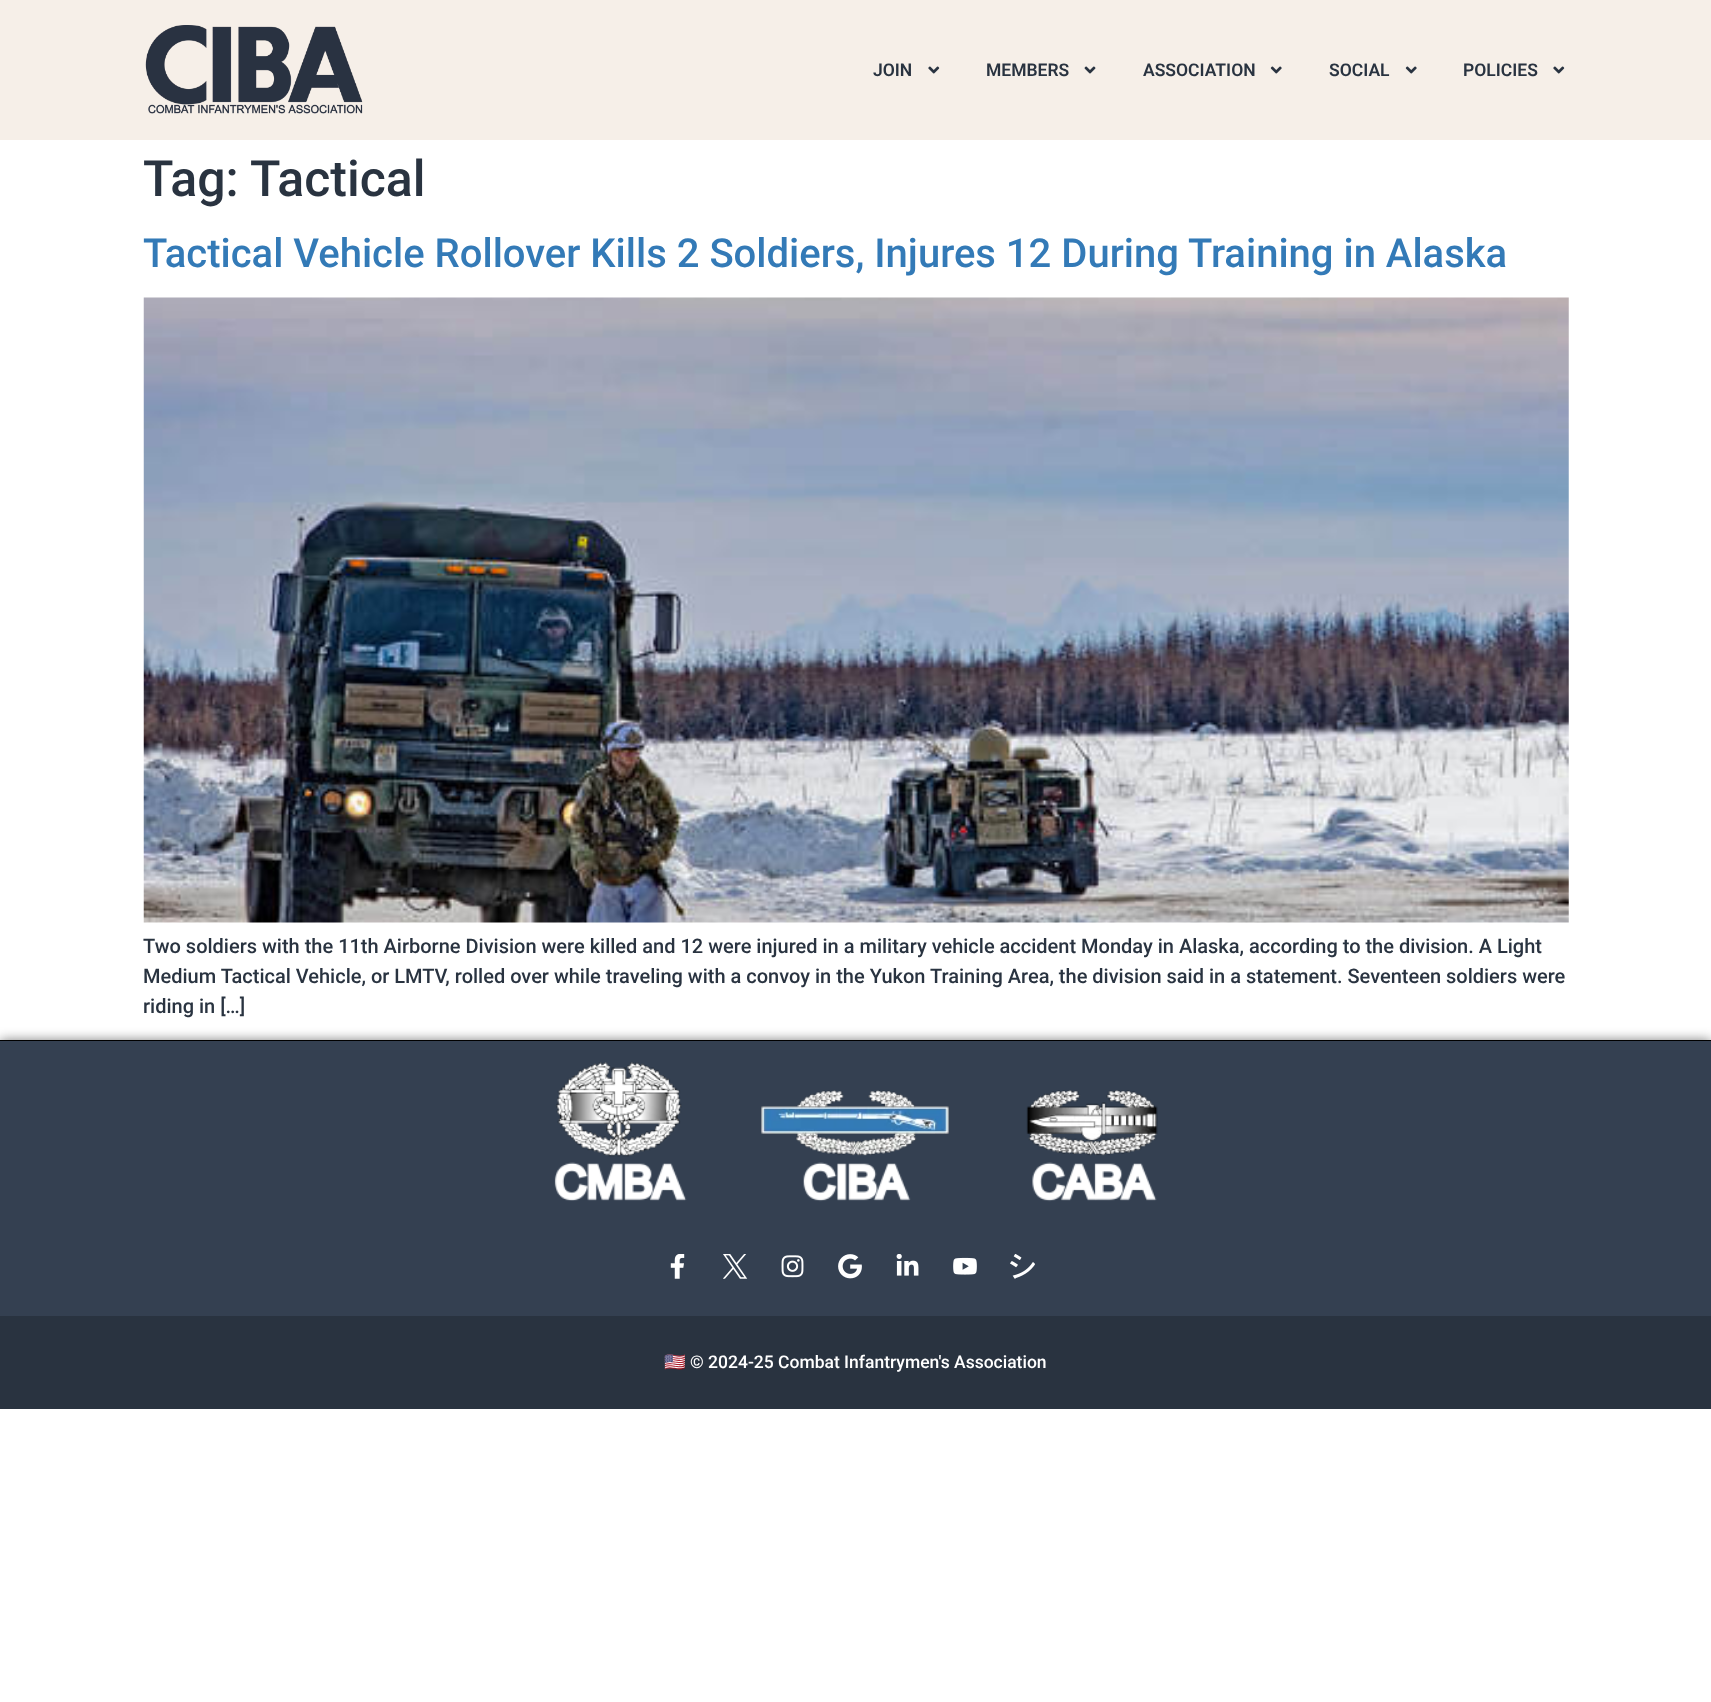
<svg xmlns="http://www.w3.org/2000/svg" width="1711" height="1702">
<rect width="100%" height="100%" fill="#fff"/>
<rect width="1711" height="140" fill="#f6efe8"/>
<image x="145" y="25" width="218" height="89" href="media/1.png"/>
<text x="873" y="76" style="font-family:Roboto;font-size:17.5px;font-weight:600;fill:#293340">JOIN</text>
<image x="928" y="66" width="12" height="8" href="media/2.png"/>
<text x="986" y="76" style="font-family:Roboto;font-size:17.5px;font-weight:600;fill:#293340">MEMBERS</text>
<image x="1084" y="66" width="12" height="8" href="media/3.png"/>
<text x="1143" y="76" style="font-family:Roboto;font-size:17.5px;font-weight:600;fill:#293340">ASSOCIATION</text>
<image x="1270" y="66" width="12" height="8" href="media/4.png"/>
<text x="1329" y="76" style="font-family:Roboto;font-size:17.5px;font-weight:600;fill:#293340">SOCIAL</text>
<image x="1405" y="66" width="12" height="8" href="media/4.png"/>
<text x="1463" y="76" style="font-family:Roboto;font-size:17.5px;font-weight:600;fill:#293340">POLICIES</text>
<image x="1553" y="66" width="12" height="8" href="media/2.png"/>
<text x="143" y="196" style="font-family:Roboto;font-size:50px;font-weight:500;fill:#293340">Tag:</text>
<text x="250" y="196" style="font-family:Roboto;font-size:50px;font-weight:500;fill:#293340">Tactical</text>
<text x="143" y="267" style="font-family:Roboto;font-size:40px;font-weight:500;fill:#337ab7">Tactical Vehicle Rollover Kills 2 Soldiers, Injures 12 During Training in Alaska</text>
<image x="143" y="297" width="1426" height="626" href="media/5.png"/>
<text x="143" y="953" style="font-family:Roboto;font-size:20px;font-weight:500;fill:#293340">Two soldiers with the 11th Airborne Division were killed and 12 were injured in a military vehicle accident Monday in Alaska, according to the division. A Light</text>
<text x="143" y="983" style="font-family:Roboto;font-size:20px;font-weight:500;fill:#293340">Medium Tactical Vehicle, or LMTV, rolled over while traveling with a convoy in the Yukon Training Area, the division said in a statement. Seventeen soldiers were</text>
<text x="143" y="1013" style="font-family:Roboto;font-size:20px;font-weight:500;fill:#293340">riding in […]</text>
<rect y="1040" width="1711" height="176" fill="#00000080" filter="blur(6px)"/>
<rect y="1041" width="1711" height="275" fill="#344051"/>
<rect y="1040" width="1711" height="1" fill="#000"/>
<image x="554" y="1062" width="133" height="139" href="media/6.png"/>
<image x="761" y="1090" width="188" height="112" href="media/7.png"/>
<image x="1026" y="1090" width="132" height="112" href="media/8.png"/>
<image x="670" y="1254" width="15" height="25" href="media/9.png"/>
<image x="723" y="1254" width="25" height="25" href="media/10.png"/>
<image x="781" y="1255" width="23" height="23" href="media/11.png"/>
<image x="838" y="1254" width="24" height="25" href="media/12.png"/>
<image x="896" y="1254" width="23" height="22" href="media/13.png"/>
<image x="953" y="1257" width="24" height="18" href="media/14.png"/>
<image x="1010" y="1254" width="25" height="25" href="media/15.png"/>
<rect y="1316" width="1711" height="93" fill="#293340"/>
<text x="664" y="1368" style="font-family:Noto Color Emoji;font-size:17.5px;fill:#fff">🇺🇸</text>
<text x="690" y="1368" style="font-family:Roboto;font-size:17.5px;font-weight:500;fill:#fff">© 2024-25 Combat Infantrymen's Association</text>
</svg>
